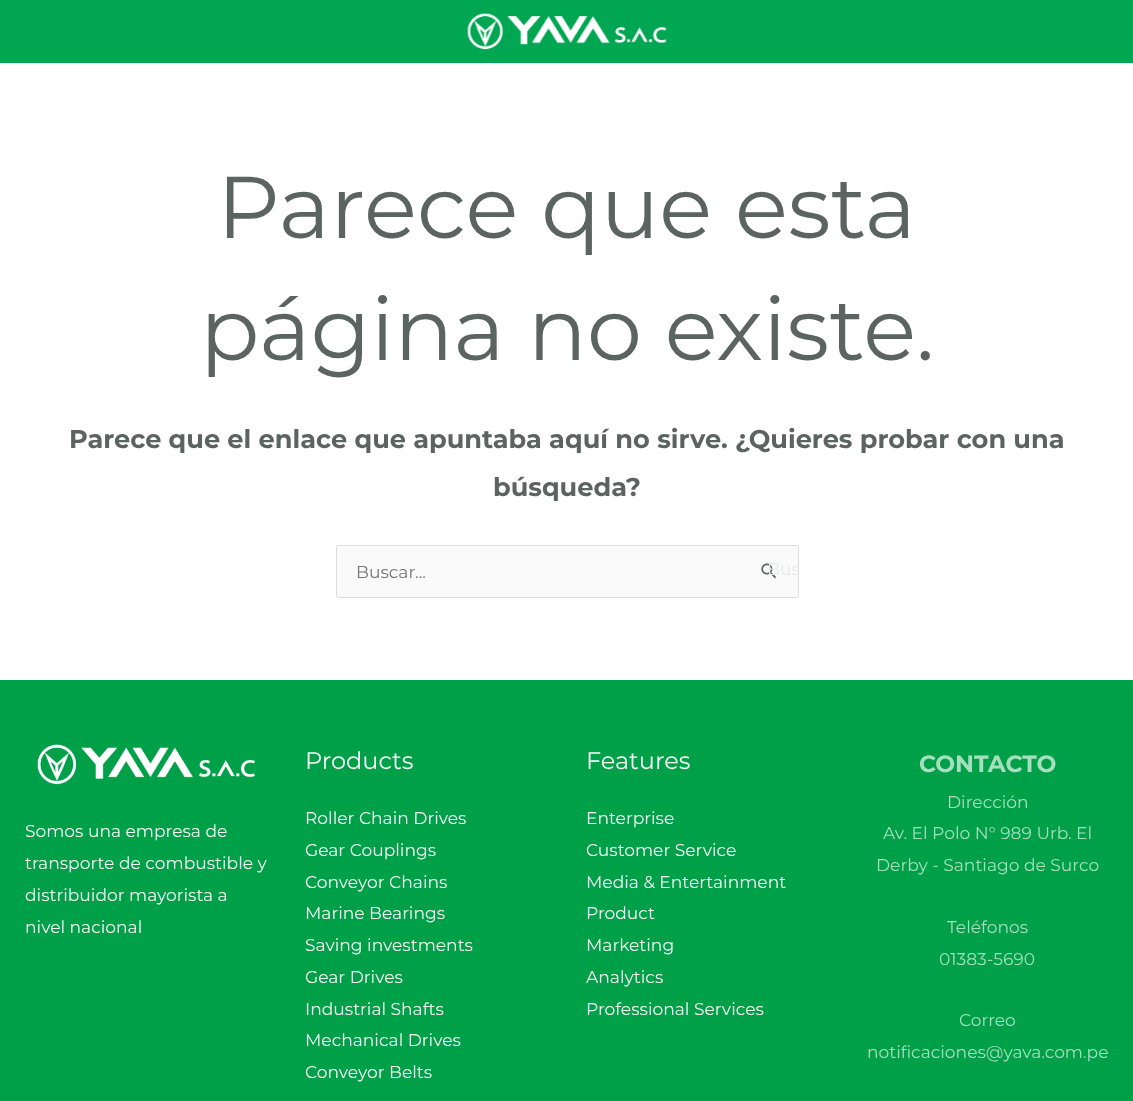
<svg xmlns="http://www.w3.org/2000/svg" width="1133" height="1101">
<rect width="100%" height="100%" fill="#fff"/>
<rect width="1133" height="63" fill="#00a652"/>
<image x="467" y="13" width="200" height="37" href="media/1.png"/>
<text x="217" y="238" style="font-family:Montserrat;font-size:87.5px;fill:#5c6461">Parece que esta</text>
<text x="200" y="360" style="font-family:Montserrat;font-size:87.5px;fill:#5c6461">página no existe.</text>
<text x="69" y="448" style="font-family:Montserrat;font-size:25.65px;font-weight:bold;fill:#5c6461">Parece que el enlace que apuntaba aquí no sirve. ¿Quieres probar con una</text>
<text x="493" y="496" style="font-family:Montserrat;font-size:25.65px;font-weight:bold;fill:#5c6461">búsqueda?</text>
<rect x="336.5" y="545.5" width="462" height="52" rx="2" fill="#fafafa" stroke="#ddd"/>
<image x="761" y="563" width="16" height="16" href="media/2.png"/>
<text x="356" y="578" style="font-family:Montserrat;font-size:17.1px;fill:#757575">Buscar...</text>
<text x="767" y="575" style="font-family:Montserrat;font-size:17.1px;fill:#e7e8e8">Bus</text>
<rect y="680" width="1133" height="421" fill="#00a048"/>
<image x="37" y="744" width="218" height="41" href="media/3.png"/>
<text x="25" y="837" style="font-family:Montserrat;font-size:17.1px;fill:#f6f7f8">Somos una empresa de</text>
<text x="25" y="869" style="font-family:Montserrat;font-size:17.1px;fill:#f6f7f8">transporte de combustible y</text>
<text x="25" y="901" style="font-family:Montserrat;font-size:17.1px;fill:#f6f7f8">distribuidor mayorista a</text>
<text x="25" y="933" style="font-family:Montserrat;font-size:17.1px;fill:#f6f7f8">nivel nacional</text>
<text x="305" y="769" style="font-family:Montserrat;font-size:24px;fill:#f6f7f8">Products</text>
<text x="305" y="824" style="font-family:Montserrat;font-size:17.1px;fill:#f6f7f8">Roller Chain Drives</text>
<text x="305" y="856" style="font-family:Montserrat;font-size:17.1px;fill:#f6f7f8">Gear Couplings</text>
<text x="305" y="888" style="font-family:Montserrat;font-size:17.1px;fill:#f6f7f8">Conveyor Chains</text>
<text x="305" y="919" style="font-family:Montserrat;font-size:17.1px;fill:#f6f7f8">Marine Bearings</text>
<text x="305" y="951" style="font-family:Montserrat;font-size:17.1px;fill:#f6f7f8">Saving investments</text>
<text x="305" y="983" style="font-family:Montserrat;font-size:17.1px;fill:#f6f7f8">Gear Drives</text>
<text x="305" y="1015" style="font-family:Montserrat;font-size:17.1px;fill:#f6f7f8">Industrial Shafts</text>
<text x="305" y="1046" style="font-family:Montserrat;font-size:17.1px;fill:#f6f7f8">Mechanical Drives</text>
<text x="305" y="1078" style="font-family:Montserrat;font-size:17.1px;fill:#f6f7f8">Conveyor Belts</text>
<text x="586" y="769" style="font-family:Montserrat;font-size:24px;fill:#f6f7f8">Features</text>
<text x="586" y="824" style="font-family:Montserrat;font-size:17.1px;fill:#f6f7f8">Enterprise</text>
<text x="586" y="856" style="font-family:Montserrat;font-size:17.1px;fill:#f6f7f8">Customer Service</text>
<text x="586" y="888" style="font-family:Montserrat;font-size:17.1px;fill:#f6f7f8">Media &amp; Entertainment</text>
<text x="586" y="919" style="font-family:Montserrat;font-size:17.1px;fill:#f6f7f8">Product</text>
<text x="586" y="951" style="font-family:Montserrat;font-size:17.1px;fill:#f6f7f8">Marketing</text>
<text x="586" y="983" style="font-family:Montserrat;font-size:17.1px;fill:#f6f7f8">Analytics</text>
<text x="586" y="1015" style="font-family:Montserrat;font-size:17.1px;fill:#f6f7f8">Professional Services</text>
<text x="919" y="772" style="font-family:Montserrat;font-size:23.5px;font-weight:bold;fill:#a6debf">CONTACTO</text>
<text x="947" y="808" style="font-family:Montserrat;font-size:17.1px;fill:#a6debf">Dirección</text>
<text x="883" y="839" style="font-family:Montserrat;font-size:17.1px;fill:#a6debf">Av. El Polo N° 989 Urb. El</text>
<text x="876" y="871" style="font-family:Montserrat;font-size:17.1px;fill:#a6debf">Derby - Santiago de Surco</text>
<text x="947" y="933" style="font-family:Montserrat;font-size:17.1px;fill:#a6debf">Teléfonos</text>
<text x="939" y="965" style="font-family:Montserrat;font-size:17.1px;fill:#a6debf">01383-5690</text>
<text x="959" y="1026" style="font-family:Montserrat;font-size:17.1px;fill:#a6debf">Correo</text>
<text x="867" y="1058" style="font-family:Montserrat;font-size:17.1px;fill:#a6debf">notificaciones@yava.com.pe</text>
</svg>
